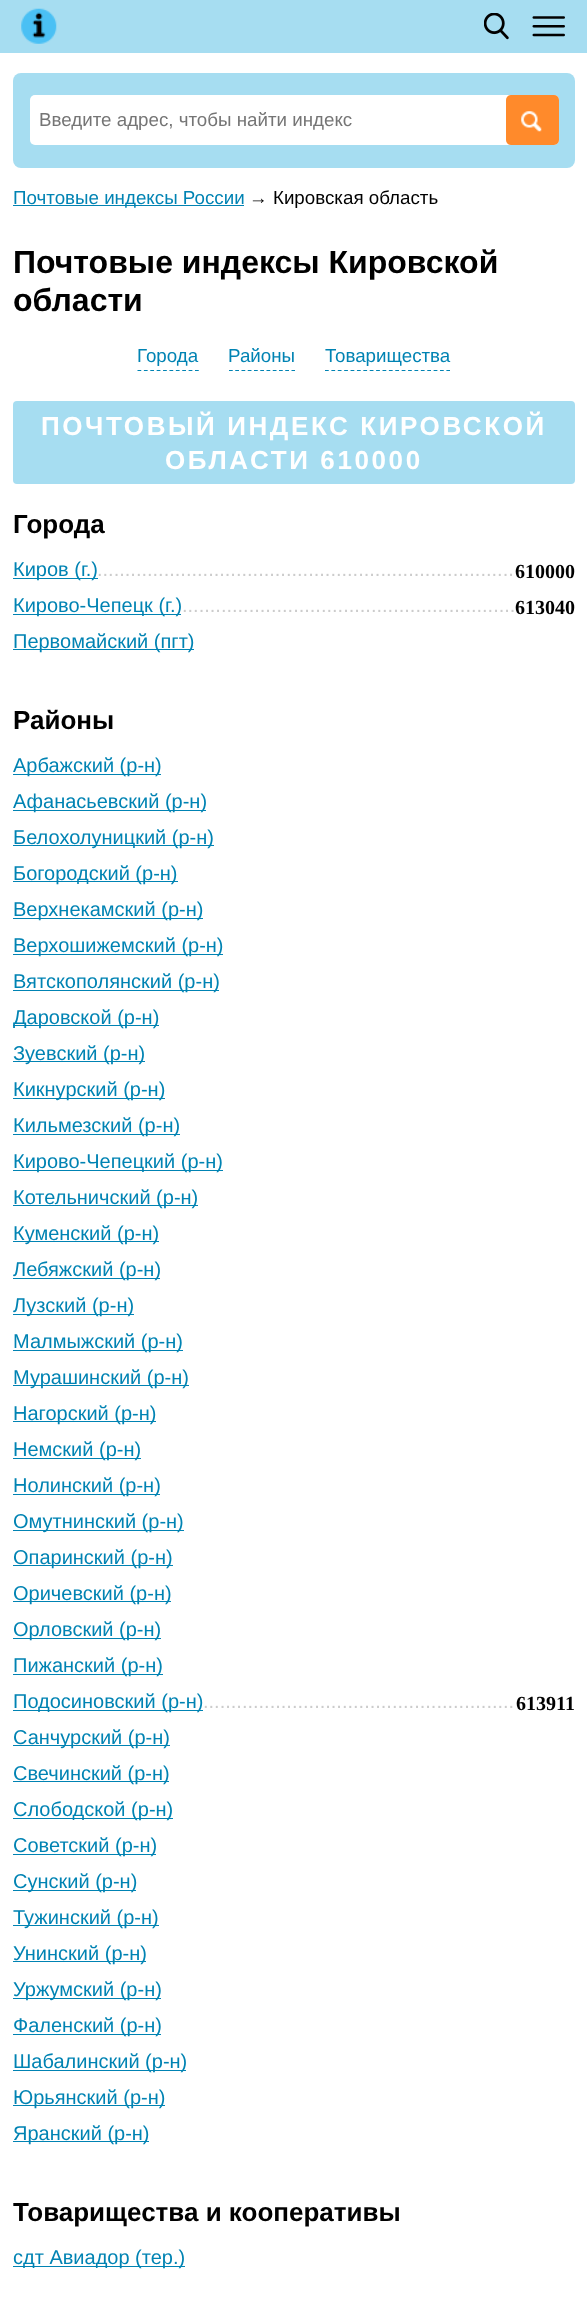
<svg xmlns="http://www.w3.org/2000/svg" width="587" height="2304">
<defs>
<clipPath id="clip1"><rect x="13" y="1005" width="562" height="26"/></clipPath>
</defs>
<rect width="100%" height="100%" fill="#fff"/>
<rect width="587" height="53" fill="#a6ddf1"/>
<image x="21" y="8" width="36" height="36" href="media/1.png"/>
<image x="484" y="13" width="25" height="27" href="media/2.png"/>
<image x="532" y="16" width="33" height="21" href="media/3.png"/>
<rect x="13" y="73" width="562" height="95" rx="8" fill="#a6ddf1"/>
<rect x="30" y="95" width="529" height="50" rx="5" fill="#fff"/>
<text x="39" y="126" style="font-family:Liberation Sans;font-size:18.75px;fill:#757575">Введите адрес, чтобы найти индекс</text>
<rect x="506" y="95" width="53" height="50" rx="5" fill="#ff8a2b"/>
<image x="521" y="111" width="21" height="21" href="media/4.png"/>
<rect x="13" y="205" width="231" height="1" fill="#0083b3"/>
<text x="13" y="204" style="font-family:Liberation Sans;font-size:18.75px;fill:#0083b3">Почтовые индексы России</text>
<text x="249" y="204" style="font-family:Liberation Sans;font-size:18.75px;fill:#000">→ Кировская область</text>
<text x="13" y="273" style="font-family:Liberation Sans;font-size:32px;font-weight:bold;fill:#000">Почтовые индексы Кировской</text>
<text x="13" y="311" style="font-family:Liberation Sans;font-size:32px;font-weight:bold;fill:#000">области</text>
<path d="M137.5 370.5h61.5" fill="none" stroke="#0083b3" stroke-width="1.2" stroke-dasharray="3.75 2.64"/>
<text x="137" y="362" style="font-family:Liberation Sans;font-size:18.75px;fill:#0083b3">Города</text>
<path d="M229 370.5h66" fill="none" stroke="#0083b3" stroke-width="1.2" stroke-dasharray="3.75 2.5"/>
<text x="228" y="362" style="font-family:Liberation Sans;font-size:18.75px;fill:#0083b3">Районы</text>
<path d="M325 370.5h125" fill="none" stroke="#0083b3" stroke-width="1.2" stroke-dasharray="3.75 2.64"/>
<text x="325" y="362" style="font-family:Liberation Sans;font-size:18.75px;fill:#0083b3">Товарищества</text>
<rect x="13" y="401" width="562" height="83" rx="4" fill="#a6ddf1"/>
<text x="41" y="435" style="font-family:Liberation Sans;font-size:26px;font-weight:bold;letter-spacing:2.6px;fill:#fff">ПОЧТОВЫЙ ИНДЕКС КИРОВСКОЙ</text>
<text x="165" y="469" style="font-family:Liberation Sans;font-size:26px;font-weight:bold;letter-spacing:2.6px;fill:#fff">ОБЛАСТИ 610000</text>
<text x="13" y="533" style="font-family:Liberation Sans;font-size:26px;font-weight:bold;fill:#000">Города</text>
<rect x="13" y="578" width="85" height="1" fill="#0083b3"/>
<text x="13" y="576" style="font-family:Liberation Sans;font-size:20px;fill:#0083b3">Киров (г.)</text>
<text x="97" y="576" style="font-family:Liberation Sans;font-size:20px;fill:#ccc">...........................................................................</text>
<text x="515" y="578" style="font-family:Liberation Serif;font-size:20px;font-weight:bold;fill:#000">610000</text>
<rect x="13" y="614" width="168" height="1" fill="#0083b3"/>
<text x="13" y="612" style="font-family:Liberation Sans;font-size:20px;fill:#0083b3">Кирово-Чепецк (г.)</text>
<text x="182" y="612" style="font-family:Liberation Sans;font-size:20px;fill:#ccc">............................................................</text>
<text x="515" y="614" style="font-family:Liberation Serif;font-size:20px;font-weight:bold;fill:#000">613040</text>
<rect x="13" y="649" width="181" height="1" fill="#0083b3"/>
<text x="13" y="648" style="font-family:Liberation Sans;font-size:20px;fill:#0083b3">Первомайский (пгт)</text>
<text x="13" y="729" style="font-family:Liberation Sans;font-size:26px;font-weight:bold;fill:#000">Районы</text>
<rect x="13" y="774" width="148" height="1" fill="#0083b3"/>
<text x="13" y="772" style="font-family:Liberation Sans;font-size:20px;fill:#0083b3">Арбажский (р-н)</text>
<rect x="13" y="810" width="193" height="1" fill="#0083b3"/>
<text x="13" y="808" style="font-family:Liberation Sans;font-size:20px;fill:#0083b3">Афанасьевский (р-н)</text>
<rect x="13" y="845" width="201" height="1" fill="#0083b3"/>
<text x="13" y="844" style="font-family:Liberation Sans;font-size:20px;fill:#0083b3">Белохолуницкий (р-н)</text>
<rect x="13" y="881" width="165" height="1" fill="#0083b3"/>
<text x="13" y="880" style="font-family:Liberation Sans;font-size:20px;fill:#0083b3">Богородский (р-н)</text>
<rect x="13" y="918" width="190" height="1" fill="#0083b3"/>
<text x="13" y="916" style="font-family:Liberation Sans;font-size:20px;fill:#0083b3">Верхнекамский (р-н)</text>
<rect x="13" y="954" width="210" height="1" fill="#0083b3"/>
<text x="13" y="952" style="font-family:Liberation Sans;font-size:20px;fill:#0083b3">Верхошижемский (р-н)</text>
<rect x="13" y="990" width="206" height="1" fill="#0083b3"/>
<text x="13" y="988" style="font-family:Liberation Sans;font-size:20px;fill:#0083b3">Вятскополянский (р-н)</text>
<rect x="13" y="1025" width="146" height="1" fill="#0083b3"/>
<g clip-path="url(#clip1)">
<text x="13" y="1024" style="font-family:Liberation Sans;font-size:20px;fill:#0083b3">Даровской (р-н)</text>
</g>
<rect x="13" y="1061" width="132" height="1" fill="#0083b3"/>
<text x="13" y="1060" style="font-family:Liberation Sans;font-size:20px;fill:#0083b3">Зуевский (р-н)</text>
<rect x="13" y="1098" width="152" height="1" fill="#0083b3"/>
<text x="13" y="1096" style="font-family:Liberation Sans;font-size:20px;fill:#0083b3">Кикнурский (р-н)</text>
<rect x="13" y="1134" width="167" height="1" fill="#0083b3"/>
<text x="13" y="1132" style="font-family:Liberation Sans;font-size:20px;fill:#0083b3">Кильмезский (р-н)</text>
<rect x="13" y="1170" width="210" height="1" fill="#0083b3"/>
<text x="13" y="1168" style="font-family:Liberation Sans;font-size:20px;fill:#0083b3">Кирово-Чепецкий (р-н)</text>
<rect x="13" y="1205" width="185" height="1" fill="#0083b3"/>
<text x="13" y="1204" style="font-family:Liberation Sans;font-size:20px;fill:#0083b3">Котельничский (р-н)</text>
<rect x="13" y="1241" width="146" height="1" fill="#0083b3"/>
<text x="13" y="1240" style="font-family:Liberation Sans;font-size:20px;fill:#0083b3">Куменский (р-н)</text>
<rect x="13" y="1278" width="147" height="1" fill="#0083b3"/>
<text x="13" y="1276" style="font-family:Liberation Sans;font-size:20px;fill:#0083b3">Лебяжский (р-н)</text>
<rect x="13" y="1314" width="121" height="1" fill="#0083b3"/>
<text x="13" y="1312" style="font-family:Liberation Sans;font-size:20px;fill:#0083b3">Лузский (р-н)</text>
<rect x="13" y="1350" width="170" height="1" fill="#0083b3"/>
<text x="13" y="1348" style="font-family:Liberation Sans;font-size:20px;fill:#0083b3">Малмыжский (р-н)</text>
<rect x="13" y="1385" width="176" height="1" fill="#0083b3"/>
<text x="13" y="1384" style="font-family:Liberation Sans;font-size:20px;fill:#0083b3">Мурашинский (р-н)</text>
<rect x="13" y="1421" width="143" height="1" fill="#0083b3"/>
<text x="13" y="1420" style="font-family:Liberation Sans;font-size:20px;fill:#0083b3">Нагорский (р-н)</text>
<rect x="13" y="1458" width="128" height="1" fill="#0083b3"/>
<text x="13" y="1456" style="font-family:Liberation Sans;font-size:20px;fill:#0083b3">Немский (р-н)</text>
<rect x="13" y="1494" width="147" height="1" fill="#0083b3"/>
<text x="13" y="1492" style="font-family:Liberation Sans;font-size:20px;fill:#0083b3">Нолинский (р-н)</text>
<rect x="13" y="1530" width="171" height="1" fill="#0083b3"/>
<text x="13" y="1528" style="font-family:Liberation Sans;font-size:20px;fill:#0083b3">Омутнинский (р-н)</text>
<rect x="13" y="1565" width="160" height="1" fill="#0083b3"/>
<text x="13" y="1564" style="font-family:Liberation Sans;font-size:20px;fill:#0083b3">Опаринский (р-н)</text>
<rect x="13" y="1601" width="158" height="1" fill="#0083b3"/>
<text x="13" y="1600" style="font-family:Liberation Sans;font-size:20px;fill:#0083b3">Оричевский (р-н)</text>
<rect x="13" y="1638" width="148" height="1" fill="#0083b3"/>
<text x="13" y="1636" style="font-family:Liberation Sans;font-size:20px;fill:#0083b3">Орловский (р-н)</text>
<rect x="13" y="1674" width="150" height="1" fill="#0083b3"/>
<text x="13" y="1672" style="font-family:Liberation Sans;font-size:20px;fill:#0083b3">Пижанский (р-н)</text>
<rect x="13" y="1710" width="190" height="1" fill="#0083b3"/>
<text x="13" y="1708" style="font-family:Liberation Sans;font-size:20px;fill:#0083b3">Подосиновский (р-н)</text>
<text x="203" y="1708" style="font-family:Liberation Sans;font-size:20px;fill:#ccc">........................................................</text>
<text x="516" y="1710" style="font-family:Liberation Serif;font-size:20px;font-weight:bold;fill:#000">613911</text>
<rect x="13" y="1745" width="157" height="1" fill="#0083b3"/>
<text x="13" y="1744" style="font-family:Liberation Sans;font-size:20px;fill:#0083b3">Санчурский (р-н)</text>
<rect x="13" y="1781" width="156" height="1" fill="#0083b3"/>
<text x="13" y="1780" style="font-family:Liberation Sans;font-size:20px;fill:#0083b3">Свечинский (р-н)</text>
<rect x="13" y="1818" width="160" height="1" fill="#0083b3"/>
<text x="13" y="1816" style="font-family:Liberation Sans;font-size:20px;fill:#0083b3">Слободской (р-н)</text>
<rect x="13" y="1854" width="143" height="1" fill="#0083b3"/>
<text x="13" y="1852" style="font-family:Liberation Sans;font-size:20px;fill:#0083b3">Советский (р-н)</text>
<rect x="13" y="1890" width="123" height="1" fill="#0083b3"/>
<text x="13" y="1888" style="font-family:Liberation Sans;font-size:20px;fill:#0083b3">Сунский (р-н)</text>
<rect x="13" y="1925" width="146" height="1" fill="#0083b3"/>
<text x="13" y="1924" style="font-family:Liberation Sans;font-size:20px;fill:#0083b3">Тужинский (р-н)</text>
<rect x="13" y="1961" width="133" height="1" fill="#0083b3"/>
<text x="13" y="1960" style="font-family:Liberation Sans;font-size:20px;fill:#0083b3">Унинский (р-н)</text>
<rect x="13" y="1998" width="148" height="1" fill="#0083b3"/>
<text x="13" y="1996" style="font-family:Liberation Sans;font-size:20px;fill:#0083b3">Уржумский (р-н)</text>
<rect x="13" y="2034" width="148" height="1" fill="#0083b3"/>
<text x="13" y="2032" style="font-family:Liberation Sans;font-size:20px;fill:#0083b3">Фаленский (р-н)</text>
<rect x="13" y="2070" width="173" height="1" fill="#0083b3"/>
<text x="13" y="2068" style="font-family:Liberation Sans;font-size:20px;fill:#0083b3">Шабалинский (р-н)</text>
<rect x="13" y="2105" width="152" height="1" fill="#0083b3"/>
<text x="13" y="2104" style="font-family:Liberation Sans;font-size:20px;fill:#0083b3">Юрьянский (р-н)</text>
<rect x="13" y="2141" width="136" height="1" fill="#0083b3"/>
<text x="13" y="2140" style="font-family:Liberation Sans;font-size:20px;fill:#0083b3">Яранский (р-н)</text>
<text x="13" y="2221" style="font-family:Liberation Sans;font-size:26px;font-weight:bold;fill:#000">Товарищества и кооперативы</text>
<rect x="13" y="2266" width="172" height="1" fill="#0083b3"/>
<text x="13" y="2264" style="font-family:Liberation Sans;font-size:20px;fill:#0083b3">сдт Авиадор (тер.)</text>
</svg>
